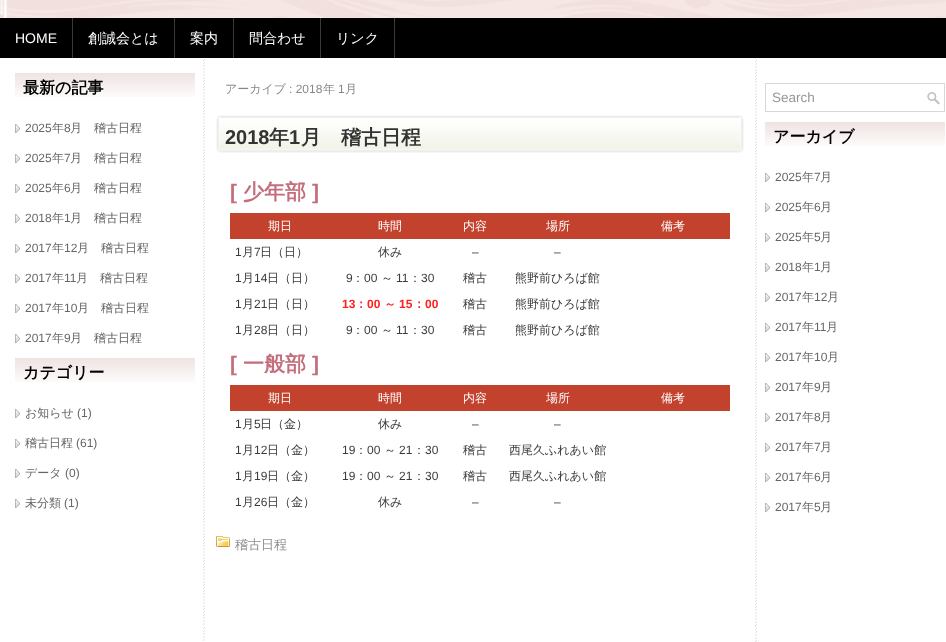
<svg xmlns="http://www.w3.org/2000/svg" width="946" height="642">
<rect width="100%" height="100%" fill="#fff"/>
<image x="0" y="0" width="946" height="18" href="media/1.png"/>
<image x="0" y="0" width="946" height="18" href="media/2.png"/>
<rect y="18" width="946" height="40" fill="#000"/>
<rect x="72" y="18" width="1" height="40" fill="#3a3a3a"/>
<text x="15" y="43" style="font-family:Liberation Sans;font-size:14px;fill:#fff">HOME</text>
<rect x="174" y="18" width="1" height="40" fill="#3a3a3a"/>
<text x="88" y="43" style="font-family:WenQuanYi Zen Hei;font-size:14px;font-weight:500;fill:#fff">創誠会とは</text>
<rect x="233" y="18" width="1" height="40" fill="#3a3a3a"/>
<text x="190" y="43" style="font-family:WenQuanYi Zen Hei;font-size:14px;font-weight:500;fill:#fff">案内</text>
<rect x="320" y="18" width="1" height="40" fill="#3a3a3a"/>
<text x="249" y="43" style="font-family:WenQuanYi Zen Hei;font-size:14px;font-weight:500;fill:#fff">問合わせ</text>
<rect x="394" y="18" width="1" height="40" fill="#3a3a3a"/>
<text x="336" y="43" style="font-family:WenQuanYi Zen Hei;font-size:14px;font-weight:500;fill:#fff">リンク</text>
<image x="203" y="58" width="554" height="568" href="media/3.png"/>
<image x="15" y="73" width="180" height="24" href="media/4.png"/>
<text x="23" y="93" style="font-family:WenQuanYi Zen Hei;font-size:16px;font-weight:bold;fill:#000">最新の記事</text>
<image x="15" y="124" width="5" height="9" href="media/5.png"/>
<text x="25" y="132" style="font-family:Liberation Sans;font-size:12px;fill:#666">2025</text>
<text x="52" y="132" style="font-family:WenQuanYi Zen Hei;font-size:12px;font-weight:500;fill:#666">年</text>
<text x="64" y="132" style="font-family:Liberation Sans;font-size:12px;fill:#666">8</text>
<text x="70" y="132" style="font-family:WenQuanYi Zen Hei;font-size:12px;font-weight:500;fill:#666">月　稽古日程</text>
<image x="15" y="154" width="5" height="9" href="media/5.png"/>
<text x="25" y="162" style="font-family:Liberation Sans;font-size:12px;fill:#666">2025</text>
<text x="52" y="162" style="font-family:WenQuanYi Zen Hei;font-size:12px;font-weight:500;fill:#666">年</text>
<text x="64" y="162" style="font-family:Liberation Sans;font-size:12px;fill:#666">7</text>
<text x="70" y="162" style="font-family:WenQuanYi Zen Hei;font-size:12px;font-weight:500;fill:#666">月　稽古日程</text>
<image x="15" y="184" width="5" height="9" href="media/5.png"/>
<text x="25" y="192" style="font-family:Liberation Sans;font-size:12px;fill:#666">2025</text>
<text x="52" y="192" style="font-family:WenQuanYi Zen Hei;font-size:12px;font-weight:500;fill:#666">年</text>
<text x="64" y="192" style="font-family:Liberation Sans;font-size:12px;fill:#666">6</text>
<text x="70" y="192" style="font-family:WenQuanYi Zen Hei;font-size:12px;font-weight:500;fill:#666">月　稽古日程</text>
<image x="15" y="214" width="5" height="9" href="media/5.png"/>
<text x="25" y="222" style="font-family:Liberation Sans;font-size:12px;fill:#666">2018</text>
<text x="52" y="222" style="font-family:WenQuanYi Zen Hei;font-size:12px;font-weight:500;fill:#666">年</text>
<text x="64" y="222" style="font-family:Liberation Sans;font-size:12px;fill:#666">1</text>
<text x="70" y="222" style="font-family:WenQuanYi Zen Hei;font-size:12px;font-weight:500;fill:#666">月　稽古日程</text>
<image x="15" y="244" width="5" height="9" href="media/5.png"/>
<text x="25" y="252" style="font-family:Liberation Sans;font-size:12px;fill:#666">2017</text>
<text x="52" y="252" style="font-family:WenQuanYi Zen Hei;font-size:12px;font-weight:500;fill:#666">年</text>
<text x="64" y="252" style="font-family:Liberation Sans;font-size:12px;fill:#666">12</text>
<text x="77" y="252" style="font-family:WenQuanYi Zen Hei;font-size:12px;font-weight:500;fill:#666">月　稽古日程</text>
<image x="15" y="274" width="5" height="9" href="media/5.png"/>
<text x="25" y="282" style="font-family:Liberation Sans;font-size:12px;fill:#666">2017</text>
<text x="52" y="282" style="font-family:WenQuanYi Zen Hei;font-size:12px;font-weight:500;fill:#666">年</text>
<text x="64" y="282" style="font-family:Liberation Sans;font-size:12px;fill:#666">11</text>
<text x="76" y="282" style="font-family:WenQuanYi Zen Hei;font-size:12px;font-weight:500;fill:#666">月　稽古日程</text>
<image x="15" y="304" width="5" height="9" href="media/5.png"/>
<text x="25" y="312" style="font-family:Liberation Sans;font-size:12px;fill:#666">2017</text>
<text x="52" y="312" style="font-family:WenQuanYi Zen Hei;font-size:12px;font-weight:500;fill:#666">年</text>
<text x="64" y="312" style="font-family:Liberation Sans;font-size:12px;fill:#666">10</text>
<text x="77" y="312" style="font-family:WenQuanYi Zen Hei;font-size:12px;font-weight:500;fill:#666">月　稽古日程</text>
<image x="15" y="334" width="5" height="9" href="media/5.png"/>
<text x="25" y="342" style="font-family:Liberation Sans;font-size:12px;fill:#666">2017</text>
<text x="52" y="342" style="font-family:WenQuanYi Zen Hei;font-size:12px;font-weight:500;fill:#666">年</text>
<text x="64" y="342" style="font-family:Liberation Sans;font-size:12px;fill:#666">9</text>
<text x="70" y="342" style="font-family:WenQuanYi Zen Hei;font-size:12px;font-weight:500;fill:#666">月　稽古日程</text>
<image x="15" y="358" width="180" height="24" href="media/4.png"/>
<text x="23" y="378" style="font-family:WenQuanYi Zen Hei;font-size:16px;font-weight:bold;fill:#000">カテゴリー</text>
<image x="15" y="409" width="5" height="9" href="media/5.png"/>
<text x="25" y="417" style="font-family:WenQuanYi Zen Hei;font-size:12px;font-weight:500;fill:#666">お知らせ</text>
<text x="77" y="417" style="font-family:Liberation Sans;font-size:12px;fill:#666">(1)</text>
<image x="15" y="439" width="5" height="9" href="media/5.png"/>
<text x="25" y="447" style="font-family:WenQuanYi Zen Hei;font-size:12px;font-weight:500;fill:#666">稽古日程</text>
<text x="76" y="447" style="font-family:Liberation Sans;font-size:12px;fill:#666">(61)</text>
<image x="15" y="469" width="5" height="9" href="media/5.png"/>
<text x="25" y="477" style="font-family:WenQuanYi Zen Hei;font-size:12px;font-weight:500;fill:#666">データ</text>
<text x="65" y="477" style="font-family:Liberation Sans;font-size:12px;fill:#666">(0)</text>
<image x="15" y="499" width="5" height="9" href="media/5.png"/>
<text x="25" y="507" style="font-family:WenQuanYi Zen Hei;font-size:12px;font-weight:500;fill:#666">未分類</text>
<text x="64" y="507" style="font-family:Liberation Sans;font-size:12px;fill:#666">(1)</text>
<text x="225" y="93" style="font-family:WenQuanYi Zen Hei;font-size:12px;font-weight:500;fill:#888">アーカイブ</text>
<text x="289" y="93" style="font-family:Liberation Sans;font-size:12px;fill:#888">: 2018</text>
<text x="323" y="93" style="font-family:WenQuanYi Zen Hei;font-size:12px;font-weight:500;fill:#888">年</text>
<text x="338" y="93" style="font-family:Liberation Sans;font-size:12px;fill:#888">1</text>
<text x="345" y="93" style="font-family:WenQuanYi Zen Hei;font-size:12px;font-weight:500;fill:#888">月</text>
<image x="216" y="115" width="528" height="38" href="media/6.png"/>
<text x="225" y="144" style="font-family:Liberation Sans;font-size:20px;font-weight:bold;fill:#333">2018</text>
<text x="269" y="144" style="font-family:WenQuanYi Zen Hei;font-size:20px;font-weight:bold;fill:#333">年</text>
<text x="289" y="144" style="font-family:Liberation Sans;font-size:20px;font-weight:bold;fill:#333">1</text>
<text x="301" y="144" style="font-family:WenQuanYi Zen Hei;font-size:20px;font-weight:bold;fill:#333">月　稽古日程</text>
<text x="230" y="199" style="font-family:Liberation Sans;font-size:21px;font-weight:bold;fill:#c46e7c">[</text>
<text x="243" y="199" style="font-family:WenQuanYi Zen Hei;font-size:21px;font-weight:bold;fill:#c46e7c">少年部</text>
<text x="312" y="199" style="font-family:Liberation Sans;font-size:21px;font-weight:bold;fill:#c46e7c">]</text>
<rect x="230" y="213" width="500" height="26" fill="#c2422e"/>
<text x="268" y="230" style="font-family:WenQuanYi Zen Hei;font-size:12px;font-weight:500;fill:#fff">期日</text>
<text x="378" y="230" style="font-family:WenQuanYi Zen Hei;font-size:12px;font-weight:500;fill:#fff">時間</text>
<text x="463" y="230" style="font-family:WenQuanYi Zen Hei;font-size:12px;font-weight:500;fill:#fff">内容</text>
<text x="546" y="230" style="font-family:WenQuanYi Zen Hei;font-size:12px;font-weight:500;fill:#fff">場所</text>
<text x="661" y="230" style="font-family:WenQuanYi Zen Hei;font-size:12px;font-weight:500;fill:#fff">備考</text>
<text x="235" y="256" style="font-family:Liberation Sans;font-size:12px;fill:#3b3b3b">1</text>
<text x="242" y="256" style="font-family:WenQuanYi Zen Hei;font-size:12px;font-weight:500;fill:#3b3b3b">月</text>
<text x="254" y="256" style="font-family:Liberation Sans;font-size:12px;fill:#3b3b3b">7</text>
<text x="260" y="256" style="font-family:WenQuanYi Zen Hei;font-size:12px;font-weight:500;fill:#3b3b3b">日（日）</text>
<text x="378" y="256" style="font-family:WenQuanYi Zen Hei;font-size:12px;font-weight:500;fill:#3b3b3b">休み</text>
<text x="472" y="256" style="font-family:Liberation Sans;font-size:12px;fill:#3b3b3b">–</text>
<text x="554" y="256" style="font-family:Liberation Sans;font-size:12px;fill:#3b3b3b">–</text>
<text x="235" y="282" style="font-family:Liberation Sans;font-size:12px;fill:#3b3b3b">1</text>
<text x="242" y="282" style="font-family:WenQuanYi Zen Hei;font-size:12px;font-weight:500;fill:#3b3b3b">月</text>
<text x="254" y="282" style="font-family:Liberation Sans;font-size:12px;fill:#3b3b3b">14</text>
<text x="267" y="282" style="font-family:WenQuanYi Zen Hei;font-size:12px;font-weight:500;fill:#3b3b3b">日（日）</text>
<text x="346" y="282" style="font-family:Liberation Sans;font-size:12px;fill:#3b3b3b">9</text>
<text x="352" y="282" style="font-family:WenQuanYi Zen Hei;font-size:12px;font-weight:500;fill:#3b3b3b">：</text>
<text x="364" y="282" style="font-family:Liberation Sans;font-size:12px;fill:#3b3b3b">00</text>
<text x="381" y="282" style="font-family:WenQuanYi Zen Hei;font-size:12px;font-weight:500;fill:#3b3b3b">～</text>
<text x="396" y="282" style="font-family:Liberation Sans;font-size:12px;fill:#3b3b3b">11</text>
<text x="409" y="282" style="font-family:WenQuanYi Zen Hei;font-size:12px;font-weight:500;fill:#3b3b3b">：</text>
<text x="421" y="282" style="font-family:Liberation Sans;font-size:12px;fill:#3b3b3b">30</text>
<text x="463" y="282" style="font-family:WenQuanYi Zen Hei;font-size:12px;font-weight:500;fill:#3b3b3b">稽古</text>
<text x="515" y="282" style="font-family:WenQuanYi Zen Hei;font-size:12px;font-weight:500;fill:#3b3b3b">熊野前ひろば館</text>
<text x="235" y="308" style="font-family:Liberation Sans;font-size:12px;fill:#3b3b3b">1</text>
<text x="242" y="308" style="font-family:WenQuanYi Zen Hei;font-size:12px;font-weight:500;fill:#3b3b3b">月</text>
<text x="254" y="308" style="font-family:Liberation Sans;font-size:12px;fill:#3b3b3b">21</text>
<text x="267" y="308" style="font-family:WenQuanYi Zen Hei;font-size:12px;font-weight:500;fill:#3b3b3b">日（日）</text>
<text x="342" y="308" style="font-family:Liberation Sans;font-size:12px;font-weight:bold;fill:#ff2020">13</text>
<text x="355" y="308" style="font-family:WenQuanYi Zen Hei;font-size:12px;font-weight:bold;fill:#ff2020">：</text>
<text x="367" y="308" style="font-family:Liberation Sans;font-size:12px;font-weight:bold;fill:#ff2020">00</text>
<text x="384" y="308" style="font-family:WenQuanYi Zen Hei;font-size:12px;font-weight:bold;fill:#ff2020">～</text>
<text x="399" y="308" style="font-family:Liberation Sans;font-size:12px;font-weight:bold;fill:#ff2020">15</text>
<text x="413" y="308" style="font-family:WenQuanYi Zen Hei;font-size:12px;font-weight:bold;fill:#ff2020">：</text>
<text x="425" y="308" style="font-family:Liberation Sans;font-size:12px;font-weight:bold;fill:#ff2020">00</text>
<text x="463" y="308" style="font-family:WenQuanYi Zen Hei;font-size:12px;font-weight:500;fill:#3b3b3b">稽古</text>
<text x="515" y="308" style="font-family:WenQuanYi Zen Hei;font-size:12px;font-weight:500;fill:#3b3b3b">熊野前ひろば館</text>
<text x="235" y="334" style="font-family:Liberation Sans;font-size:12px;fill:#3b3b3b">1</text>
<text x="242" y="334" style="font-family:WenQuanYi Zen Hei;font-size:12px;font-weight:500;fill:#3b3b3b">月</text>
<text x="254" y="334" style="font-family:Liberation Sans;font-size:12px;fill:#3b3b3b">28</text>
<text x="267" y="334" style="font-family:WenQuanYi Zen Hei;font-size:12px;font-weight:500;fill:#3b3b3b">日（日）</text>
<text x="346" y="334" style="font-family:Liberation Sans;font-size:12px;fill:#3b3b3b">9</text>
<text x="352" y="334" style="font-family:WenQuanYi Zen Hei;font-size:12px;font-weight:500;fill:#3b3b3b">：</text>
<text x="364" y="334" style="font-family:Liberation Sans;font-size:12px;fill:#3b3b3b">00</text>
<text x="381" y="334" style="font-family:WenQuanYi Zen Hei;font-size:12px;font-weight:500;fill:#3b3b3b">～</text>
<text x="396" y="334" style="font-family:Liberation Sans;font-size:12px;fill:#3b3b3b">11</text>
<text x="409" y="334" style="font-family:WenQuanYi Zen Hei;font-size:12px;font-weight:500;fill:#3b3b3b">：</text>
<text x="421" y="334" style="font-family:Liberation Sans;font-size:12px;fill:#3b3b3b">30</text>
<text x="463" y="334" style="font-family:WenQuanYi Zen Hei;font-size:12px;font-weight:500;fill:#3b3b3b">稽古</text>
<text x="515" y="334" style="font-family:WenQuanYi Zen Hei;font-size:12px;font-weight:500;fill:#3b3b3b">熊野前ひろば館</text>
<text x="230" y="371" style="font-family:Liberation Sans;font-size:21px;font-weight:bold;fill:#c46e7c">[</text>
<text x="243" y="371" style="font-family:WenQuanYi Zen Hei;font-size:21px;font-weight:bold;fill:#c46e7c">一般部</text>
<text x="312" y="371" style="font-family:Liberation Sans;font-size:21px;font-weight:bold;fill:#c46e7c">]</text>
<rect x="230" y="385" width="500" height="26" fill="#c2422e"/>
<text x="268" y="402" style="font-family:WenQuanYi Zen Hei;font-size:12px;font-weight:500;fill:#fff">期日</text>
<text x="378" y="402" style="font-family:WenQuanYi Zen Hei;font-size:12px;font-weight:500;fill:#fff">時間</text>
<text x="463" y="402" style="font-family:WenQuanYi Zen Hei;font-size:12px;font-weight:500;fill:#fff">内容</text>
<text x="546" y="402" style="font-family:WenQuanYi Zen Hei;font-size:12px;font-weight:500;fill:#fff">場所</text>
<text x="661" y="402" style="font-family:WenQuanYi Zen Hei;font-size:12px;font-weight:500;fill:#fff">備考</text>
<text x="235" y="428" style="font-family:Liberation Sans;font-size:12px;fill:#3b3b3b">1</text>
<text x="242" y="428" style="font-family:WenQuanYi Zen Hei;font-size:12px;font-weight:500;fill:#3b3b3b">月</text>
<text x="254" y="428" style="font-family:Liberation Sans;font-size:12px;fill:#3b3b3b">5</text>
<text x="260" y="428" style="font-family:WenQuanYi Zen Hei;font-size:12px;font-weight:500;fill:#3b3b3b">日（金）</text>
<text x="378" y="428" style="font-family:WenQuanYi Zen Hei;font-size:12px;font-weight:500;fill:#3b3b3b">休み</text>
<text x="472" y="428" style="font-family:Liberation Sans;font-size:12px;fill:#3b3b3b">–</text>
<text x="554" y="428" style="font-family:Liberation Sans;font-size:12px;fill:#3b3b3b">–</text>
<text x="235" y="454" style="font-family:Liberation Sans;font-size:12px;fill:#3b3b3b">1</text>
<text x="242" y="454" style="font-family:WenQuanYi Zen Hei;font-size:12px;font-weight:500;fill:#3b3b3b">月</text>
<text x="254" y="454" style="font-family:Liberation Sans;font-size:12px;fill:#3b3b3b">12</text>
<text x="267" y="454" style="font-family:WenQuanYi Zen Hei;font-size:12px;font-weight:500;fill:#3b3b3b">日（金）</text>
<text x="342" y="454" style="font-family:Liberation Sans;font-size:12px;fill:#3b3b3b">19</text>
<text x="355" y="454" style="font-family:WenQuanYi Zen Hei;font-size:12px;font-weight:500;fill:#3b3b3b">：</text>
<text x="367" y="454" style="font-family:Liberation Sans;font-size:12px;fill:#3b3b3b">00</text>
<text x="384" y="454" style="font-family:WenQuanYi Zen Hei;font-size:12px;font-weight:500;fill:#3b3b3b">～</text>
<text x="399" y="454" style="font-family:Liberation Sans;font-size:12px;fill:#3b3b3b">21</text>
<text x="413" y="454" style="font-family:WenQuanYi Zen Hei;font-size:12px;font-weight:500;fill:#3b3b3b">：</text>
<text x="425" y="454" style="font-family:Liberation Sans;font-size:12px;fill:#3b3b3b">30</text>
<text x="463" y="454" style="font-family:WenQuanYi Zen Hei;font-size:12px;font-weight:500;fill:#3b3b3b">稽古</text>
<text x="509" y="454" style="font-family:WenQuanYi Zen Hei;font-size:12px;font-weight:500;fill:#3b3b3b">西尾久ふれあい館</text>
<text x="235" y="480" style="font-family:Liberation Sans;font-size:12px;fill:#3b3b3b">1</text>
<text x="242" y="480" style="font-family:WenQuanYi Zen Hei;font-size:12px;font-weight:500;fill:#3b3b3b">月</text>
<text x="254" y="480" style="font-family:Liberation Sans;font-size:12px;fill:#3b3b3b">19</text>
<text x="267" y="480" style="font-family:WenQuanYi Zen Hei;font-size:12px;font-weight:500;fill:#3b3b3b">日（金）</text>
<text x="342" y="480" style="font-family:Liberation Sans;font-size:12px;fill:#3b3b3b">19</text>
<text x="355" y="480" style="font-family:WenQuanYi Zen Hei;font-size:12px;font-weight:500;fill:#3b3b3b">：</text>
<text x="367" y="480" style="font-family:Liberation Sans;font-size:12px;fill:#3b3b3b">00</text>
<text x="384" y="480" style="font-family:WenQuanYi Zen Hei;font-size:12px;font-weight:500;fill:#3b3b3b">～</text>
<text x="399" y="480" style="font-family:Liberation Sans;font-size:12px;fill:#3b3b3b">21</text>
<text x="413" y="480" style="font-family:WenQuanYi Zen Hei;font-size:12px;font-weight:500;fill:#3b3b3b">：</text>
<text x="425" y="480" style="font-family:Liberation Sans;font-size:12px;fill:#3b3b3b">30</text>
<text x="463" y="480" style="font-family:WenQuanYi Zen Hei;font-size:12px;font-weight:500;fill:#3b3b3b">稽古</text>
<text x="509" y="480" style="font-family:WenQuanYi Zen Hei;font-size:12px;font-weight:500;fill:#3b3b3b">西尾久ふれあい館</text>
<text x="235" y="506" style="font-family:Liberation Sans;font-size:12px;fill:#3b3b3b">1</text>
<text x="242" y="506" style="font-family:WenQuanYi Zen Hei;font-size:12px;font-weight:500;fill:#3b3b3b">月</text>
<text x="254" y="506" style="font-family:Liberation Sans;font-size:12px;fill:#3b3b3b">26</text>
<text x="267" y="506" style="font-family:WenQuanYi Zen Hei;font-size:12px;font-weight:500;fill:#3b3b3b">日（金）</text>
<text x="378" y="506" style="font-family:WenQuanYi Zen Hei;font-size:12px;font-weight:500;fill:#3b3b3b">休み</text>
<text x="472" y="506" style="font-family:Liberation Sans;font-size:12px;fill:#3b3b3b">–</text>
<text x="554" y="506" style="font-family:Liberation Sans;font-size:12px;fill:#3b3b3b">–</text>
<image x="216" y="536" width="14" height="11" href="media/7.png"/>
<text x="235" y="549" style="font-family:WenQuanYi Zen Hei;font-size:13px;font-weight:500;fill:#918e8e">稽古日程</text>
<image x="927" y="92" width="13" height="13" href="media/8.png"/>
<rect x="765.5" y="83.5" width="179" height="28" fill="none" stroke="#d8d8d8"/>
<text x="772" y="102" style="font-family:Liberation Sans;font-size:13.5px;fill:#979797">Search</text>
<image x="765" y="122" width="180" height="24" href="media/4.png"/>
<text x="773" y="142" style="font-family:WenQuanYi Zen Hei;font-size:16px;font-weight:bold;fill:#000">アーカイブ</text>
<image x="765" y="173" width="5" height="9" href="media/5.png"/>
<text x="775" y="181" style="font-family:Liberation Sans;font-size:12px;fill:#666">2025</text>
<text x="802" y="181" style="font-family:WenQuanYi Zen Hei;font-size:12px;font-weight:500;fill:#666">年</text>
<text x="814" y="181" style="font-family:Liberation Sans;font-size:12px;fill:#666">7</text>
<text x="820" y="181" style="font-family:WenQuanYi Zen Hei;font-size:12px;font-weight:500;fill:#666">月</text>
<image x="765" y="203" width="5" height="9" href="media/5.png"/>
<text x="775" y="211" style="font-family:Liberation Sans;font-size:12px;fill:#666">2025</text>
<text x="802" y="211" style="font-family:WenQuanYi Zen Hei;font-size:12px;font-weight:500;fill:#666">年</text>
<text x="814" y="211" style="font-family:Liberation Sans;font-size:12px;fill:#666">6</text>
<text x="820" y="211" style="font-family:WenQuanYi Zen Hei;font-size:12px;font-weight:500;fill:#666">月</text>
<image x="765" y="233" width="5" height="9" href="media/5.png"/>
<text x="775" y="241" style="font-family:Liberation Sans;font-size:12px;fill:#666">2025</text>
<text x="802" y="241" style="font-family:WenQuanYi Zen Hei;font-size:12px;font-weight:500;fill:#666">年</text>
<text x="814" y="241" style="font-family:Liberation Sans;font-size:12px;fill:#666">5</text>
<text x="820" y="241" style="font-family:WenQuanYi Zen Hei;font-size:12px;font-weight:500;fill:#666">月</text>
<image x="765" y="263" width="5" height="9" href="media/5.png"/>
<text x="775" y="271" style="font-family:Liberation Sans;font-size:12px;fill:#666">2018</text>
<text x="802" y="271" style="font-family:WenQuanYi Zen Hei;font-size:12px;font-weight:500;fill:#666">年</text>
<text x="814" y="271" style="font-family:Liberation Sans;font-size:12px;fill:#666">1</text>
<text x="820" y="271" style="font-family:WenQuanYi Zen Hei;font-size:12px;font-weight:500;fill:#666">月</text>
<image x="765" y="293" width="5" height="9" href="media/5.png"/>
<text x="775" y="301" style="font-family:Liberation Sans;font-size:12px;fill:#666">2017</text>
<text x="802" y="301" style="font-family:WenQuanYi Zen Hei;font-size:12px;font-weight:500;fill:#666">年</text>
<text x="814" y="301" style="font-family:Liberation Sans;font-size:12px;fill:#666">12</text>
<text x="827" y="301" style="font-family:WenQuanYi Zen Hei;font-size:12px;font-weight:500;fill:#666">月</text>
<image x="765" y="323" width="5" height="9" href="media/5.png"/>
<text x="775" y="331" style="font-family:Liberation Sans;font-size:12px;fill:#666">2017</text>
<text x="802" y="331" style="font-family:WenQuanYi Zen Hei;font-size:12px;font-weight:500;fill:#666">年</text>
<text x="814" y="331" style="font-family:Liberation Sans;font-size:12px;fill:#666">11</text>
<text x="826" y="331" style="font-family:WenQuanYi Zen Hei;font-size:12px;font-weight:500;fill:#666">月</text>
<image x="765" y="353" width="5" height="9" href="media/5.png"/>
<text x="775" y="361" style="font-family:Liberation Sans;font-size:12px;fill:#666">2017</text>
<text x="802" y="361" style="font-family:WenQuanYi Zen Hei;font-size:12px;font-weight:500;fill:#666">年</text>
<text x="814" y="361" style="font-family:Liberation Sans;font-size:12px;fill:#666">10</text>
<text x="827" y="361" style="font-family:WenQuanYi Zen Hei;font-size:12px;font-weight:500;fill:#666">月</text>
<image x="765" y="383" width="5" height="9" href="media/5.png"/>
<text x="775" y="391" style="font-family:Liberation Sans;font-size:12px;fill:#666">2017</text>
<text x="802" y="391" style="font-family:WenQuanYi Zen Hei;font-size:12px;font-weight:500;fill:#666">年</text>
<text x="814" y="391" style="font-family:Liberation Sans;font-size:12px;fill:#666">9</text>
<text x="820" y="391" style="font-family:WenQuanYi Zen Hei;font-size:12px;font-weight:500;fill:#666">月</text>
<image x="765" y="413" width="5" height="9" href="media/5.png"/>
<text x="775" y="421" style="font-family:Liberation Sans;font-size:12px;fill:#666">2017</text>
<text x="802" y="421" style="font-family:WenQuanYi Zen Hei;font-size:12px;font-weight:500;fill:#666">年</text>
<text x="814" y="421" style="font-family:Liberation Sans;font-size:12px;fill:#666">8</text>
<text x="820" y="421" style="font-family:WenQuanYi Zen Hei;font-size:12px;font-weight:500;fill:#666">月</text>
<image x="765" y="443" width="5" height="9" href="media/5.png"/>
<text x="775" y="451" style="font-family:Liberation Sans;font-size:12px;fill:#666">2017</text>
<text x="802" y="451" style="font-family:WenQuanYi Zen Hei;font-size:12px;font-weight:500;fill:#666">年</text>
<text x="814" y="451" style="font-family:Liberation Sans;font-size:12px;fill:#666">7</text>
<text x="820" y="451" style="font-family:WenQuanYi Zen Hei;font-size:12px;font-weight:500;fill:#666">月</text>
<image x="765" y="473" width="5" height="9" href="media/5.png"/>
<text x="775" y="481" style="font-family:Liberation Sans;font-size:12px;fill:#666">2017</text>
<text x="802" y="481" style="font-family:WenQuanYi Zen Hei;font-size:12px;font-weight:500;fill:#666">年</text>
<text x="814" y="481" style="font-family:Liberation Sans;font-size:12px;fill:#666">6</text>
<text x="820" y="481" style="font-family:WenQuanYi Zen Hei;font-size:12px;font-weight:500;fill:#666">月</text>
<image x="765" y="503" width="5" height="9" href="media/5.png"/>
<text x="775" y="511" style="font-family:Liberation Sans;font-size:12px;fill:#666">2017</text>
<text x="802" y="511" style="font-family:WenQuanYi Zen Hei;font-size:12px;font-weight:500;fill:#666">年</text>
<text x="814" y="511" style="font-family:Liberation Sans;font-size:12px;fill:#666">5</text>
<text x="820" y="511" style="font-family:WenQuanYi Zen Hei;font-size:12px;font-weight:500;fill:#666">月</text>
<image x="203" y="626" width="554" height="16" href="media/9.png"/>
</svg>
